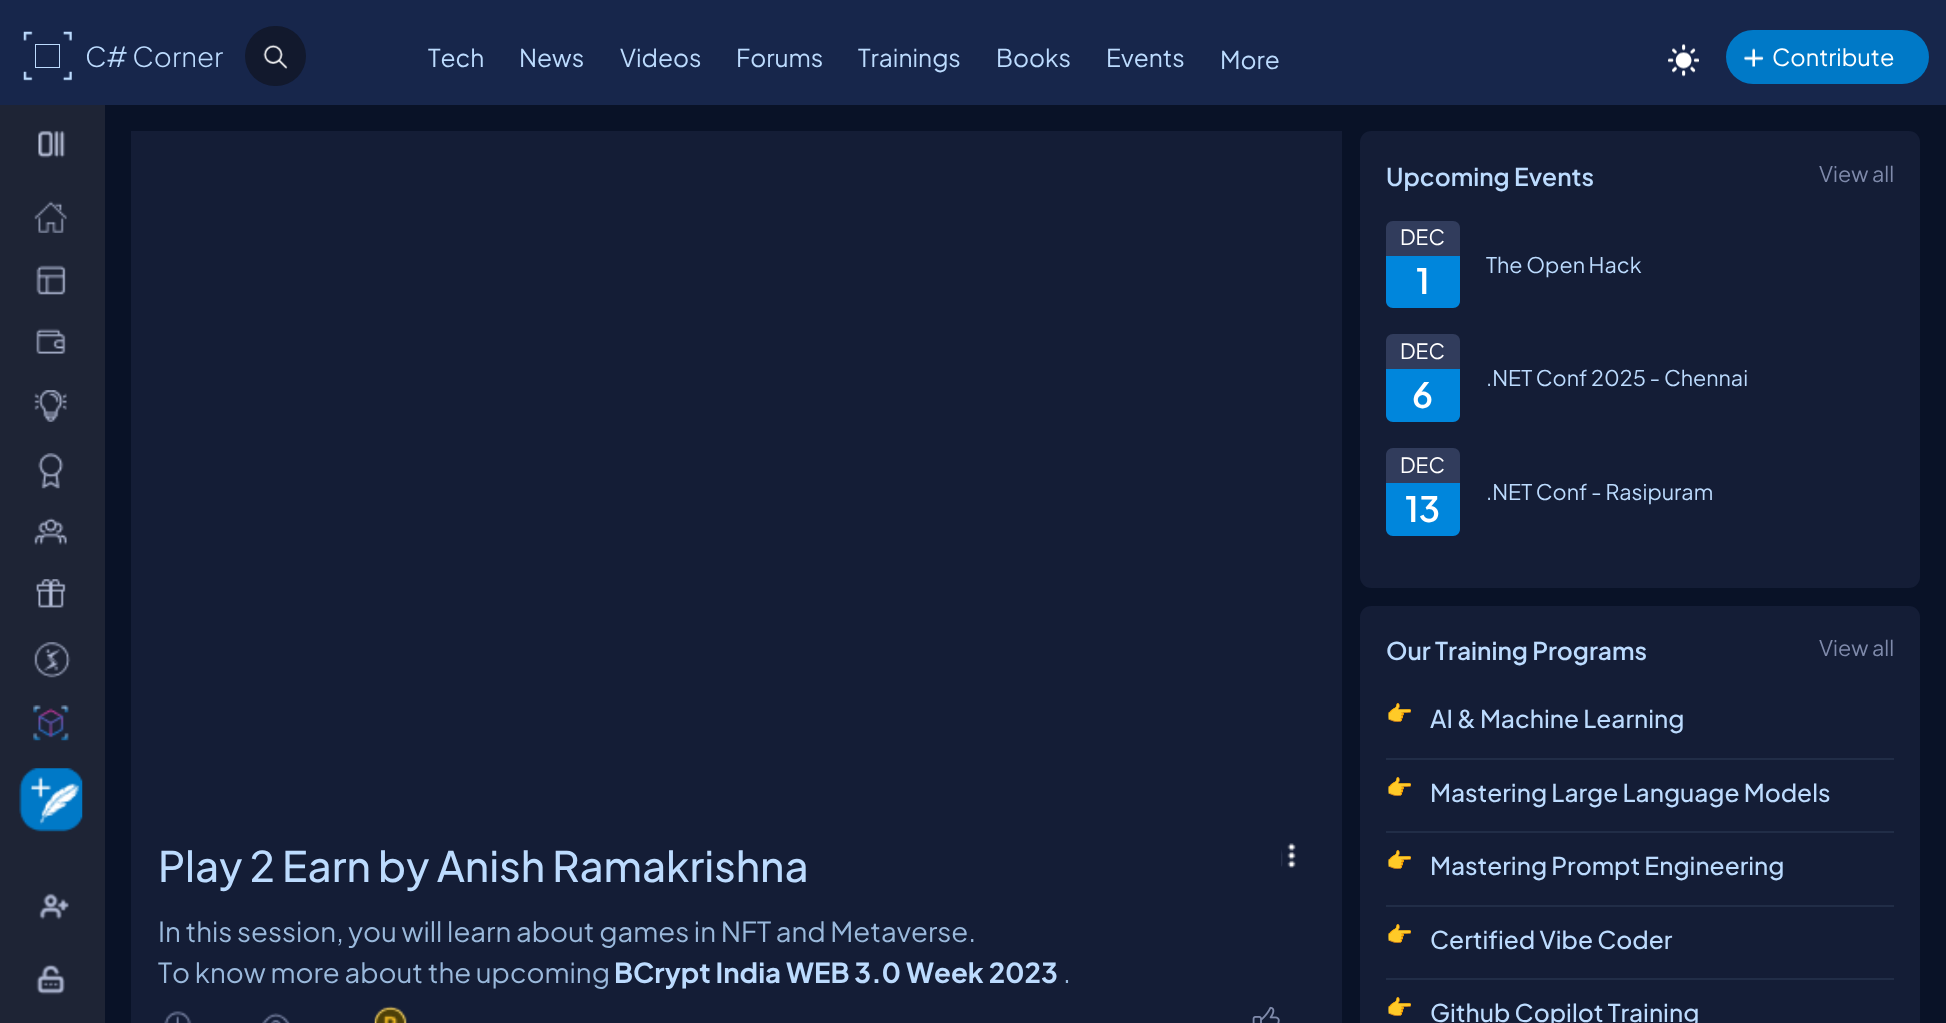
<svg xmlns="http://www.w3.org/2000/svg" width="1946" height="1023">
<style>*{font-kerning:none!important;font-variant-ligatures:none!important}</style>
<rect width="100%" height="100%" fill="#091227"/>
<rect width="1946" height="105" fill="#17264b"/>
<image x="23" y="31" width="49" height="50" href="media/1.png"/>
<rect x="35.5" y="44.5" width="24" height="23" fill="none" stroke="#bcdbfe"/>
<text x="85" y="67" style="font-family:Plus Jakarta Sans;font-size:27.5px;font-weight:300;fill:#bcdbfe">C# Corner</text>
<rect x="245" y="26" width="61" height="60" rx="30" fill="#12192d"/>
<image x="263" y="44" width="25" height="25" href="media/2.png"/>
<text x="428" y="67" style="font-family:Plus Jakarta Sans;font-size:24.5px;fill:#bcdbfe">Tech</text>
<text x="519" y="67" style="font-family:Plus Jakarta Sans;font-size:24.5px;fill:#bcdbfe">News</text>
<text x="620" y="67" style="font-family:Plus Jakarta Sans;font-size:24.5px;fill:#bcdbfe">Videos</text>
<text x="736" y="67" style="font-family:Plus Jakarta Sans;font-size:24.5px;fill:#bcdbfe">Forums</text>
<text x="858" y="67" style="font-family:Plus Jakarta Sans;font-size:24.5px;fill:#bcdbfe">Trainings</text>
<text x="996" y="67" style="font-family:Plus Jakarta Sans;font-size:24.5px;fill:#bcdbfe">Books</text>
<text x="1106" y="67" style="font-family:Plus Jakarta Sans;font-size:24.5px;fill:#bcdbfe">Events</text>
<text x="1220" y="69" style="font-family:Plus Jakarta Sans;font-size:24.5px;fill:#bcdbfe">More</text>
<image x="1668" y="44" width="31" height="33" href="media/3.png"/>
<rect x="1726" y="30" width="203" height="54" rx="27" fill="#0079c7"/>
<image x="1744" y="48" width="20" height="19" href="media/4.png"/>
<text x="1772" y="66" style="font-family:Plus Jakarta Sans;font-size:23.5px;fill:#fff">Contribute</text>
<rect y="105" width="105" height="918" fill="#1e2435"/>
<image x="38" y="130" width="28" height="28" href="media/5.png"/>
<image x="34" y="201" width="33" height="32" href="media/6.png"/>
<image x="36" y="265" width="30" height="30" href="media/7.png"/>
<image x="36" y="328" width="30" height="26" href="media/8.png"/>
<image x="34" y="390" width="33" height="32" href="media/9.png"/>
<image x="38" y="453" width="26" height="36" href="media/10.png"/>
<image x="34" y="517" width="33" height="28" href="media/11.png"/>
<image x="36" y="579" width="30" height="29" href="media/12.png"/>
<image x="34" y="642" width="37" height="36" href="media/13.png"/>
<image x="33" y="705" width="36" height="36" href="media/14.png"/>
<image x="19" y="768" width="64" height="64" href="media/15.png"/>
<image x="39" y="893" width="30" height="27" href="media/16.png"/>
<image x="36" y="964" width="29" height="31" href="media/17.png"/>
<rect x="131" y="131" width="1211" height="892" fill="#141d36"/>
<text x="158" y="882" style="font-family:Plus Jakarta Sans;font-size:42px;font-weight:500;fill:#bcdbfe">Play 2 Earn by Anish Ramakrishna</text>
<image x="1281" y="843" width="15" height="25" href="media/18.png"/>
<text x="158" y="942" style="font-family:Plus Jakarta Sans;font-size:27.55px;fill:#9ab9dc">In this session, you will learn about games in NFT and Metaverse.</text>
<text x="158" y="983" style="font-family:Plus Jakarta Sans;font-size:27.55px;fill:#9ab9dc">To know more about the upcoming</text>
<text x="614" y="983" style="font-family:Plus Jakarta Sans;font-size:27.55px;font-weight:bold;fill:#bcdbfe">BCrypt India WEB 3.0 Week 2023</text>
<text x="1063" y="983" style="font-family:Plus Jakarta Sans;font-size:27.55px;fill:#9ab9dc">.</text>
<image x="164" y="1011" width="28" height="12" href="media/19.png"/>
<image x="262" y="1013" width="28" height="10" href="media/20.png"/>
<image x="374" y="1006" width="33" height="17" href="media/21.png"/>
<image x="1252" y="1006" width="28" height="17" href="media/22.png"/>
<rect x="1360" y="131" width="560" height="457" rx="11" fill="#141d36"/>
<text x="1386" y="186" style="font-family:Plus Jakarta Sans;font-size:24.5px;font-weight:600;fill:#bcdbfe">Upcoming Events</text>
<text x="1819" y="182" style="font-family:Plus Jakarta Sans;font-size:21.5px;fill:#7f8aab">View all</text>
<path d="M1393 221h60c4 0 7 3 7 7v28h-74v-28c0-4 3-7 7-7z" fill="#313c5c"/>
<path d="M1386 256h74v45c0 4-3 7-7 7h-60c-4 0-7-3-7-7z" fill="#0086dc"/>
<text x="1400" y="245" style="font-family:Plus Jakarta Sans;font-size:21px;fill:#fff">DEC</text>
<text x="1416" y="294" style="font-family:Plus Jakarta Sans;font-size:35px;font-weight:600;fill:#fff">1</text>
<text x="1486" y="273" style="font-family:Plus Jakarta Sans;font-size:21.5px;fill:#bcdbfe">The Open Hack</text>
<path d="M1393 334h60c4 0 7 3 7 7v28h-74v-28c0-4 3-7 7-7z" fill="#313c5c"/>
<path d="M1386 369h74v46c0 4-3 7-7 7h-60c-4 0-7-3-7-7z" fill="#0086dc"/>
<text x="1400" y="359" style="font-family:Plus Jakarta Sans;font-size:21px;fill:#fff">DEC</text>
<text x="1412" y="408" style="font-family:Plus Jakarta Sans;font-size:35px;font-weight:600;fill:#fff">6</text>
<text x="1486" y="386" style="font-family:Plus Jakarta Sans;font-size:21.5px;fill:#bcdbfe">.NET Conf 2025 - Chennai</text>
<path d="M1393 448h60c4 0 7 3 7 7v28h-74v-28c0-4 3-7 7-7z" fill="#313c5c"/>
<path d="M1386 483h74v46c0 4-3 7-7 7h-60c-4 0-7-3-7-7z" fill="#0086dc"/>
<text x="1400" y="473" style="font-family:Plus Jakarta Sans;font-size:21px;fill:#fff">DEC</text>
<text x="1405" y="522" style="font-family:Plus Jakarta Sans;font-size:35px;font-weight:600;fill:#fff">13</text>
<text x="1486" y="500" style="font-family:Plus Jakarta Sans;font-size:21.5px;fill:#bcdbfe">.NET Conf - Rasipuram</text>
<rect x="1360" y="606" width="560" height="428" rx="11" fill="#141d36"/>
<text x="1386" y="660" style="font-family:Plus Jakarta Sans;font-size:24.5px;font-weight:600;fill:#bcdbfe">Our Training Programs</text>
<text x="1819" y="656" style="font-family:Plus Jakarta Sans;font-size:21.5px;fill:#7f8aab">View all</text>
<rect x="1386" y="758" width="508" height="2" fill="#212d47"/>
<text x="1386" y="721" style="font-family:Noto Color Emoji;font-size:21.5px;fill:#9ab9dc">👉</text>
<text x="1430" y="728" style="font-family:Plus Jakarta Sans;font-size:24.5px;font-weight:500;fill:#bcdbfe">AI &amp; Machine Learning</text>
<rect x="1386" y="831" width="508" height="2" fill="#212d47"/>
<text x="1386" y="795" style="font-family:Noto Color Emoji;font-size:21.5px;fill:#9ab9dc">👉</text>
<text x="1430" y="802" style="font-family:Plus Jakarta Sans;font-size:24.5px;font-weight:500;fill:#bcdbfe">Mastering Large Language Models</text>
<rect x="1386" y="905" width="508" height="2" fill="#212d47"/>
<text x="1386" y="868" style="font-family:Noto Color Emoji;font-size:21.5px;fill:#9ab9dc">👉</text>
<text x="1430" y="875" style="font-family:Plus Jakarta Sans;font-size:24.5px;font-weight:500;fill:#bcdbfe">Mastering Prompt Engineering</text>
<rect x="1386" y="978" width="508" height="2" fill="#212d47"/>
<text x="1386" y="942" style="font-family:Noto Color Emoji;font-size:21.5px;fill:#9ab9dc">👉</text>
<text x="1430" y="949" style="font-family:Plus Jakarta Sans;font-size:24.5px;font-weight:500;fill:#bcdbfe">Certified Vibe Coder</text>
<text x="1386" y="1015" style="font-family:Noto Color Emoji;font-size:21.5px;fill:#9ab9dc">👉</text>
<text x="1430" y="1022" style="font-family:Plus Jakarta Sans;font-size:24.5px;font-weight:500;fill:#bcdbfe">Github Copilot Training</text>
</svg>
